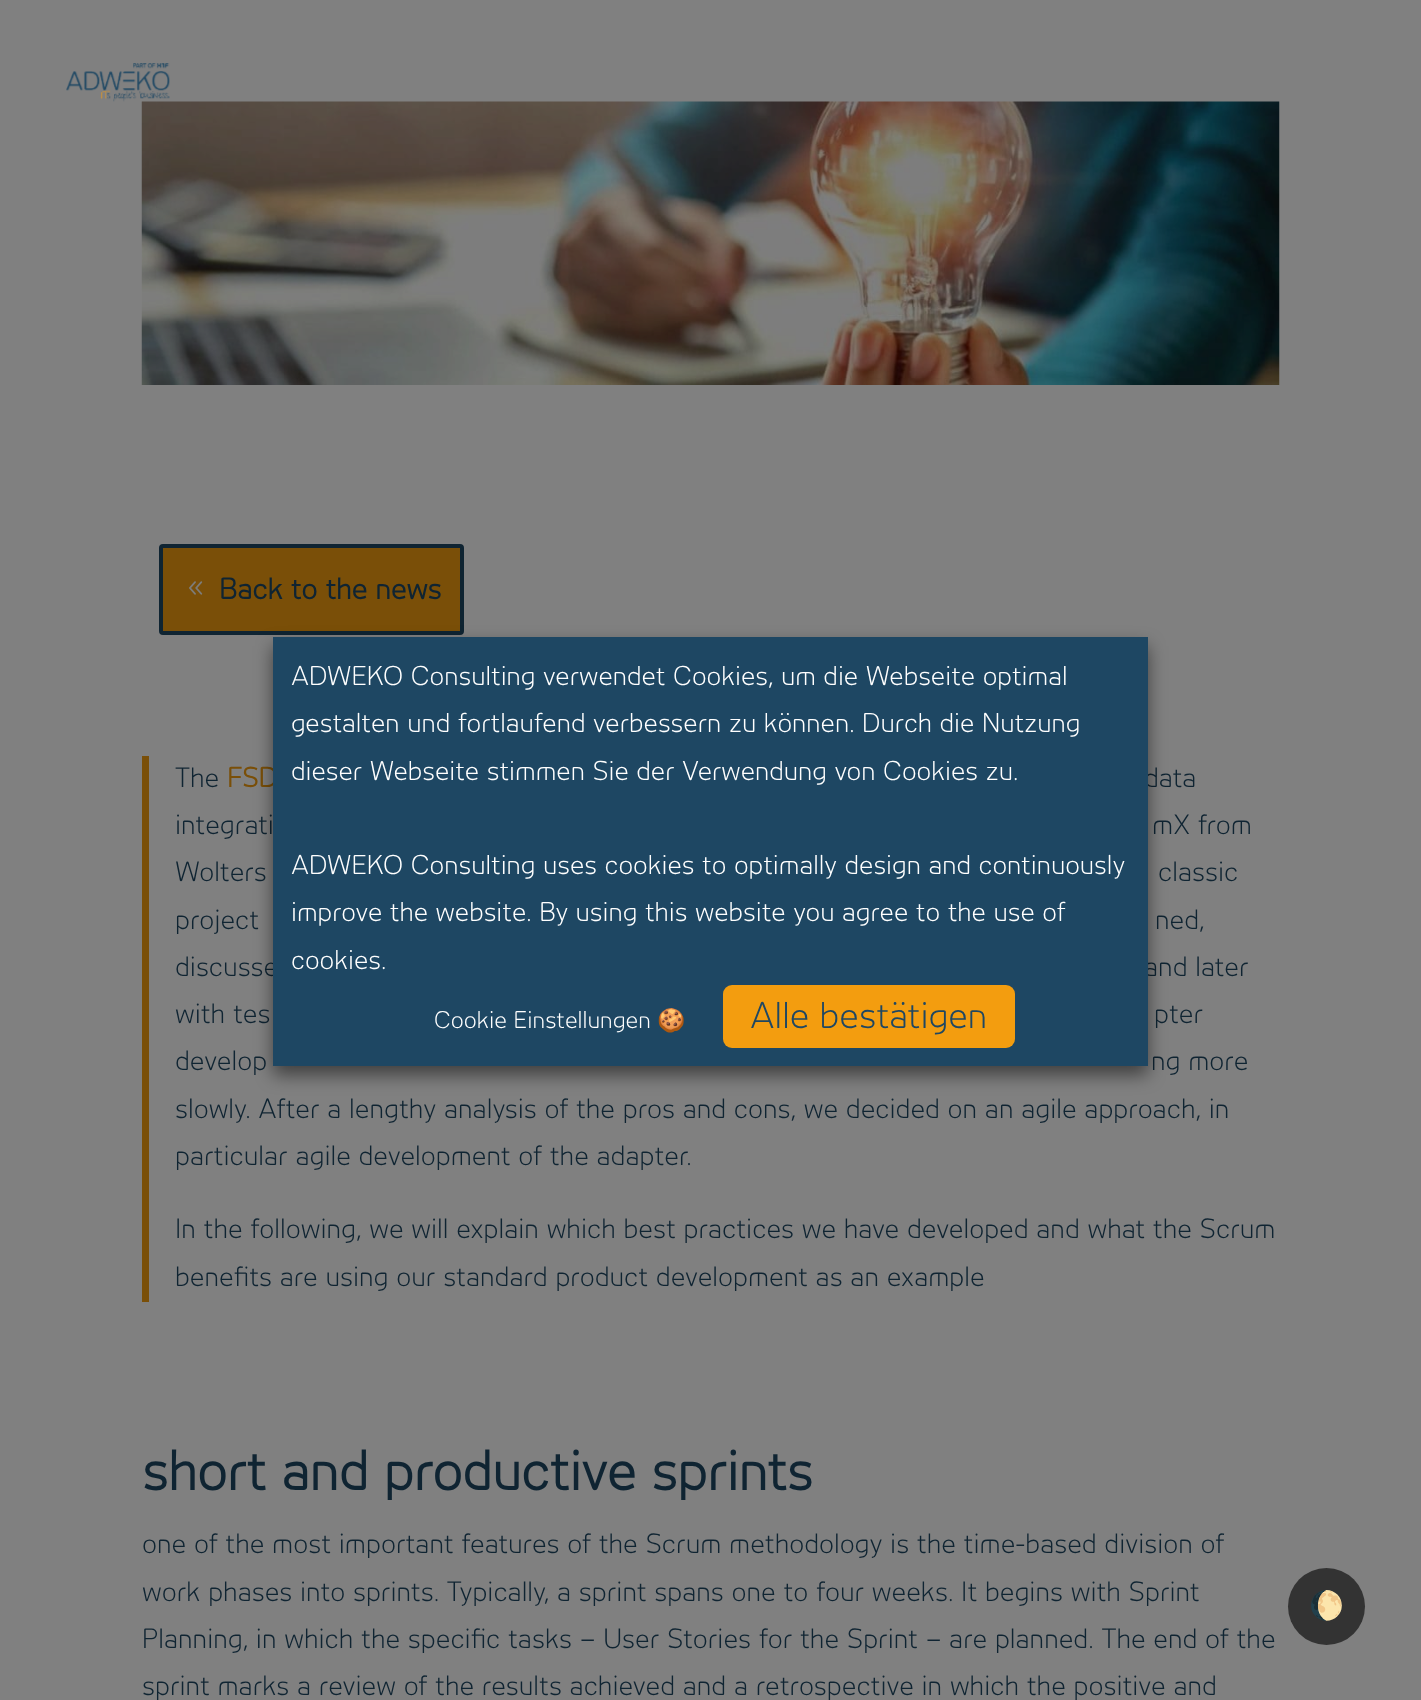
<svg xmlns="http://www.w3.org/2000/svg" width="1421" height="1700">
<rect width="100%" height="100%" fill="#808080"/>
<image x="141" y="101" width="1139" height="284" href="media/2.png"/>
<image x="66" y="63" width="104" height="39" href="media/1.png"/>
<rect x="161" y="546" width="301" height="87" rx="2" fill="#7a4f08" stroke="#0f2432" stroke-width="4"/>
<image x="189" y="581" width="14" height="14" href="media/3.png"/>
<text x="219" y="599" style="font-family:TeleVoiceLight;font-size:28px;font-weight:bold;fill:#0f2432">Back to the news</text>
<rect x="142" y="756" width="7" height="546" fill="#7a4f08"/>
<text x="175" y="787" style="font-family:TeleVoiceLight;font-size:26.25px;font-weight:300;fill:#0f2432">The</text>
<text x="227" y="787" style="font-family:TeleVoiceLight;font-size:26.25px;font-weight:bold;fill:#7a4f08">FSD</text>
<text x="1144" y="787" style="font-family:TeleVoiceLight;font-size:26.25px;font-weight:300;fill:#0f2432">data</text>
<text x="175" y="834" style="font-family:TeleVoiceLight;font-size:26.25px;font-weight:300;fill:#0f2432">integrati</text>
<text x="1152" y="834" style="font-family:TeleVoiceLight;font-size:26.25px;font-weight:300;fill:#0f2432">mX from</text>
<text x="175" y="881" style="font-family:TeleVoiceLight;font-size:26.25px;font-weight:300;fill:#0f2432">Wolters</text>
<text x="1158" y="881" style="font-family:TeleVoiceLight;font-size:26.25px;font-weight:300;fill:#0f2432">classic</text>
<text x="175" y="929" style="font-family:TeleVoiceLight;font-size:26.25px;font-weight:300;fill:#0f2432">project</text>
<text x="1155" y="929" style="font-family:TeleVoiceLight;font-size:26.25px;font-weight:300;fill:#0f2432">ned,</text>
<text x="175" y="976" style="font-family:TeleVoiceLight;font-size:26.25px;font-weight:300;fill:#0f2432">discusse</text>
<text x="1144" y="976" style="font-family:TeleVoiceLight;font-size:26.25px;font-weight:300;fill:#0f2432">and later</text>
<text x="175" y="1023" style="font-family:TeleVoiceLight;font-size:26.25px;font-weight:300;fill:#0f2432">with tes</text>
<text x="1154" y="1023" style="font-family:TeleVoiceLight;font-size:26.25px;font-weight:300;fill:#0f2432">pter</text>
<text x="175" y="1070" style="font-family:TeleVoiceLight;font-size:26.25px;font-weight:300;fill:#0f2432">develop</text>
<text x="1151" y="1070" style="font-family:TeleVoiceLight;font-size:26.25px;font-weight:300;fill:#0f2432">ng more</text>
<text x="175" y="1118" style="font-family:TeleVoiceLight;font-size:26.25px;font-weight:300;fill:#0f2432">slowly. After a lengthy analysis of the pros and cons, we decided on an agile approach, in</text>
<text x="175" y="1165" style="font-family:TeleVoiceLight;font-size:26.25px;font-weight:300;fill:#0f2432">particular agile development of the adapter.</text>
<text x="175" y="1238" style="font-family:TeleVoiceLight;font-size:26.25px;font-weight:300;fill:#0f2432">In the following, we will explain which best practices we have developed and what the Scrum</text>
<text x="175" y="1286" style="font-family:TeleVoiceLight;font-size:26.25px;font-weight:300;fill:#0f2432">benefits are using our standard product development as an example</text>
<text x="142" y="1490" style="font-family:TeleVoiceLight;font-size:52.5px;font-weight:bold;fill:#0f2432">short and productive sprints</text>
<text x="142" y="1553" style="font-family:TeleVoiceLight;font-size:26.25px;font-weight:300;fill:#0f2432">one of the most important features of the Scrum methodology is the time-based division of</text>
<text x="142" y="1601" style="font-family:TeleVoiceLight;font-size:26.25px;font-weight:300;fill:#0f2432">work phases into sprints. Typically, a sprint spans one to four weeks. It begins with Sprint</text>
<text x="142" y="1648" style="font-family:TeleVoiceLight;font-size:26.25px;font-weight:300;fill:#0f2432">Planning, in which the specific tasks – User Stories for the Sprint – are planned. The end of the</text>
<text x="142" y="1695" style="font-family:TeleVoiceLight;font-size:26.25px;font-weight:300;fill:#0f2432">sprint marks a review of the results achieved and a retrospective in which the positive and</text>
<rect x="273" y="646" width="875" height="429" fill="#00000080" filter="blur(9px)"/>
<rect x="273" y="637" width="875" height="429" fill="#1e4763"/>
<text x="291" y="685" style="font-family:TeleVoiceLight;font-size:25.7px;font-weight:300;fill:#fff">ADWEKO Consulting verwendet Cookies, um die Webseite optimal</text>
<text x="291" y="732" style="font-family:TeleVoiceLight;font-size:25.7px;font-weight:300;fill:#fff">gestalten und fortlaufend verbessern zu können. Durch die Nutzung</text>
<text x="291" y="780" style="font-family:TeleVoiceLight;font-size:25.7px;font-weight:300;fill:#fff">dieser Webseite stimmen Sie der Verwendung von Cookies zu.</text>
<text x="291" y="874" style="font-family:TeleVoiceLight;font-size:25.7px;font-weight:300;fill:#fff">ADWEKO Consulting uses cookies to optimally design and continuously</text>
<text x="291" y="921" style="font-family:TeleVoiceLight;font-size:25.7px;font-weight:300;fill:#fff">improve the website. By using this website you agree to the use of</text>
<text x="291" y="969" style="font-family:TeleVoiceLight;font-size:25.7px;font-weight:300;fill:#fff">cookies.</text>
<text x="434" y="1028" style="font-family:TeleVoiceLight;font-size:22.75px;font-weight:300;fill:#fff">Cookie Einstellungen</text>
<text x="657" y="1028" style="font-family:Noto Color Emoji;font-size:22.75px;fill:#fff">🍪</text>
<rect x="723" y="985" width="292" height="63" rx="9" fill="#f39d0f"/>
<text x="750" y="1028" style="font-family:TeleVoiceLight;font-size:35px;font-weight:300;fill:#1e4763">Alle bestätigen</text>
<circle cx="1326.5" cy="1606.5" r="38.5" fill="#333"/>
<text x="1309" y="1615" style="font-family:Noto Color Emoji;font-size:28px;font-weight:bold;fill:#fff">🌔</text>
</svg>
